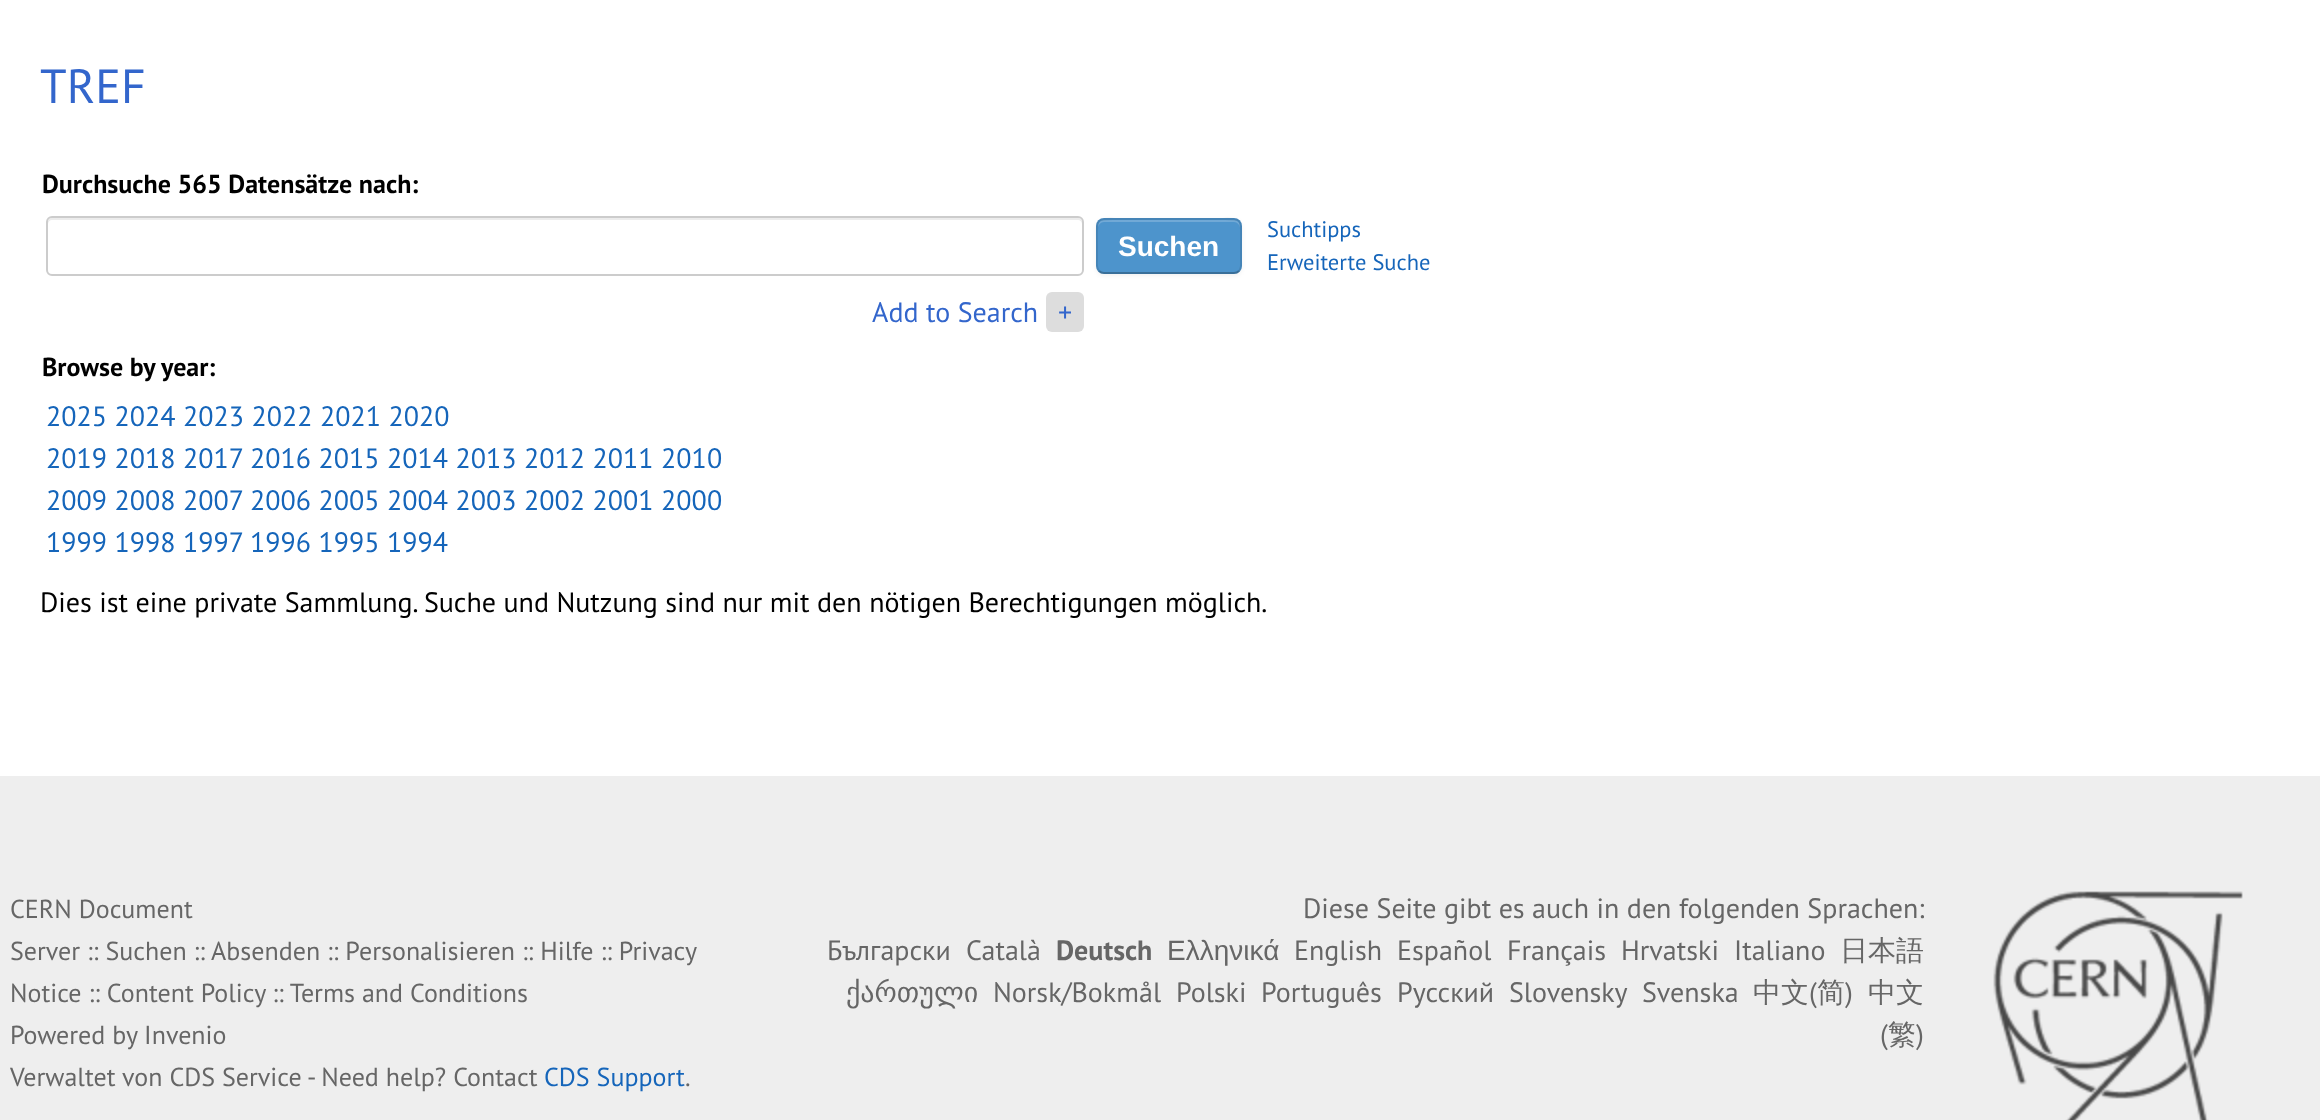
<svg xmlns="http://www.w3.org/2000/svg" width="2320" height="1120">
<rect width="100%" height="100%" fill="#fff"/>
<text x="40" y="103" style="font-family:PT Sans;font-size:48px;fill:#36c">TREF</text>
<text x="42" y="193" style="font-family:PT Sans;font-size:26px;font-weight:bold;fill:#000">Durchsuche 565 Datensätze nach:</text>
<path d="M52 220h1026c2 0 4 2 4 4v-2c0-2-2-4-4-4h-1026c-2 0-4 2-4 4v2c0-2 2-4 4-4z" fill="#ececec"/>
<rect x="47" y="217" width="1036" height="58" rx="5" fill="none" stroke="#ccc" stroke-width="2"/>
<rect x="1096" y="220" width="146" height="56" rx="8" fill="#0000000d" filter="blur(2px)"/>
<rect x="1096" y="218" width="146" height="56" rx="8" fill="#4d94cc"/>
<path d="M1104 222h130c3 0 6 3 6 6v-2c0-3-3-6-6-6h-130c-3 0-6 3-6 6v2c0-3 3-6 6-6z" fill="#71a9d6"/>
<path d="M1239 271c-1.5 1.5-3 2-5 2h-130c-2 0-3.5-.5-5-2" fill="none" stroke="#00000040" stroke-width="2"/>
<path d="M1099 271c-3-3-2-8-2-11.5v-13.5c0-31-4-27 28.5-27h87c32.5 0 28.5-4 28.5 27v13.5c0 3.5 1 8.5-2 11.5" fill="none" stroke="#0000001a" stroke-width="2"/>
<text x="1118" y="256" style="font-family:Liberation Sans;font-size:28px;font-weight:bold;fill:#fff">Suchen</text>
<text x="1267" y="237" style="font-family:PT Sans;font-size:22.5px;fill:#1565ba">Suchtipps</text>
<text x="1267" y="270" style="font-family:PT Sans;font-size:22.5px;fill:#1565ba">Erweiterte Suche</text>
<text x="872" y="322" style="font-family:PT Sans;font-size:28px;fill:#36c">Add to Search</text>
<rect x="1046" y="292" width="38" height="40" rx="6" fill="#ddd"/>
<text x="1058" y="322" style="font-family:PT Sans;font-size:28px;fill:#36c">+</text>
<text x="42" y="376" style="font-family:PT Sans;font-size:26px;font-weight:bold;fill:#000">Browse by year:</text>
<text x="46" y="426" style="font-family:PT Sans;font-size:28px;fill:#1565ba">2025 2024 2023 2022 2021 2020</text>
<text x="46" y="468" style="font-family:PT Sans;font-size:28px;fill:#1565ba">2019 2018 2017</text>
<text x="250" y="468" style="font-family:PT Sans;font-size:28px;fill:#1565ba">2016 2015 2014 2013 2012 2011 2010</text>
<text x="46" y="510" style="font-family:PT Sans;font-size:28px;fill:#1565ba">2009 2008 2007</text>
<text x="250" y="510" style="font-family:PT Sans;font-size:28px;fill:#1565ba">2006 2005 2004 2003 2002 2001 2000</text>
<text x="46" y="552" style="font-family:PT Sans;font-size:28px;fill:#1565ba">1999 1998 1997</text>
<text x="250" y="552" style="font-family:PT Sans;font-size:28px;fill:#1565ba">1996 1995 1994</text>
<text x="40" y="612" style="font-family:PT Sans;font-size:28px;fill:#000">Dies ist eine private Sammlung. Suche und Nutzung sind nur mit den nötigen Berechtigungen möglich.</text>
<rect y="776" width="2320" height="344" fill="#eee"/>
<text x="10" y="918" style="font-family:PT Sans;font-size:26px;fill:#666">CERN Document</text>
<text x="10" y="960" style="font-family:PT Sans;font-size:26px;fill:#666">Server :: Suchen :: Absenden :: Personalisieren :: Hilfe :: Privacy</text>
<text x="10" y="1002" style="font-family:PT Sans;font-size:26px;fill:#666">Notice :: Content Policy :: Terms and Conditions</text>
<text x="10" y="1044" style="font-family:PT Sans;font-size:26px;fill:#666">Powered by Invenio</text>
<text x="10" y="1086" style="font-family:PT Sans;font-size:26px;fill:#666">Verwaltet von CDS Service</text>
<text x="307" y="1086" style="font-family:PT Sans;font-size:26px;fill:#666">- Need help? Contact</text>
<text x="544" y="1086" style="font-family:PT Sans;font-size:26px;fill:#1565ba">CDS Support</text>
<text x="685" y="1086" style="font-family:PT Sans;font-size:26px;fill:#666">.</text>
<text x="1303" y="918" style="font-family:PT Sans;font-size:28px;fill:#666">Diese Seite gibt es auch in den folgenden Sprachen:</text>
<text x="827" y="960" style="font-family:PT Sans;font-size:28px;fill:#666">Български</text>
<text x="966" y="960" style="font-family:PT Sans;font-size:28px;fill:#666">Català</text>
<text x="1056" y="960" style="font-family:PT Sans;font-size:28px;font-weight:bold;fill:#666">Deutsch</text>
<text x="1167" y="960" style="font-family:Liberation Sans;font-size:28px;fill:#666">Ελληνικά</text>
<text x="1294" y="960" style="font-family:PT Sans;font-size:28px;fill:#666">English</text>
<text x="1397" y="960" style="font-family:PT Sans;font-size:28px;fill:#666">Español</text>
<text x="1507" y="960" style="font-family:PT Sans;font-size:28px;fill:#666">Français</text>
<text x="1621" y="960" style="font-family:PT Sans;font-size:28px;fill:#666">Hrvatski</text>
<text x="1734" y="960" style="font-family:PT Sans;font-size:28px;fill:#666">Italiano</text>
<text x="1840" y="960" style="font-family:WenQuanYi Zen Hei;font-size:28px;font-weight:500;fill:#666">日本語</text>
<text x="846" y="1002" style="font-family:DejaVu Sans;font-size:28px;fill:#666">ქართული</text>
<text x="993" y="1002" style="font-family:PT Sans;font-size:28px;fill:#666">Norsk/Bokmål</text>
<text x="1176" y="1002" style="font-family:PT Sans;font-size:28px;fill:#666">Polski</text>
<text x="1261" y="1002" style="font-family:PT Sans;font-size:28px;fill:#666">Português</text>
<text x="1397" y="1002" style="font-family:PT Sans;font-size:28px;fill:#666">Русский</text>
<text x="1509" y="1002" style="font-family:PT Sans;font-size:28px;fill:#666">Slovensky</text>
<text x="1642" y="1002" style="font-family:PT Sans;font-size:28px;fill:#666">Svenska</text>
<text x="1753" y="1002" style="font-family:WenQuanYi Zen Hei;font-size:28px;font-weight:500;fill:#666">中文</text>
<text x="1809" y="1002" style="font-family:PT Sans;font-size:28px;fill:#666">(</text>
<text x="1817" y="1002" style="font-family:WenQuanYi Zen Hei;font-size:28px;font-weight:500;fill:#666">简</text>
<text x="1845" y="1002" style="font-family:PT Sans;font-size:28px;fill:#666">)</text>
<text x="1868" y="1002" style="font-family:WenQuanYi Zen Hei;font-size:28px;font-weight:500;fill:#666">中文</text>
<text x="1880" y="1044" style="font-family:PT Sans;font-size:28px;fill:#666">(</text>
<text x="1888" y="1044" style="font-family:WenQuanYi Zen Hei;font-size:28px;font-weight:500;fill:#666">繁</text>
<text x="1916" y="1044" style="font-family:PT Sans;font-size:28px;fill:#666">)</text>
<image x="1993" y="891" width="250" height="229" href="media/1.png"/>
</svg>
